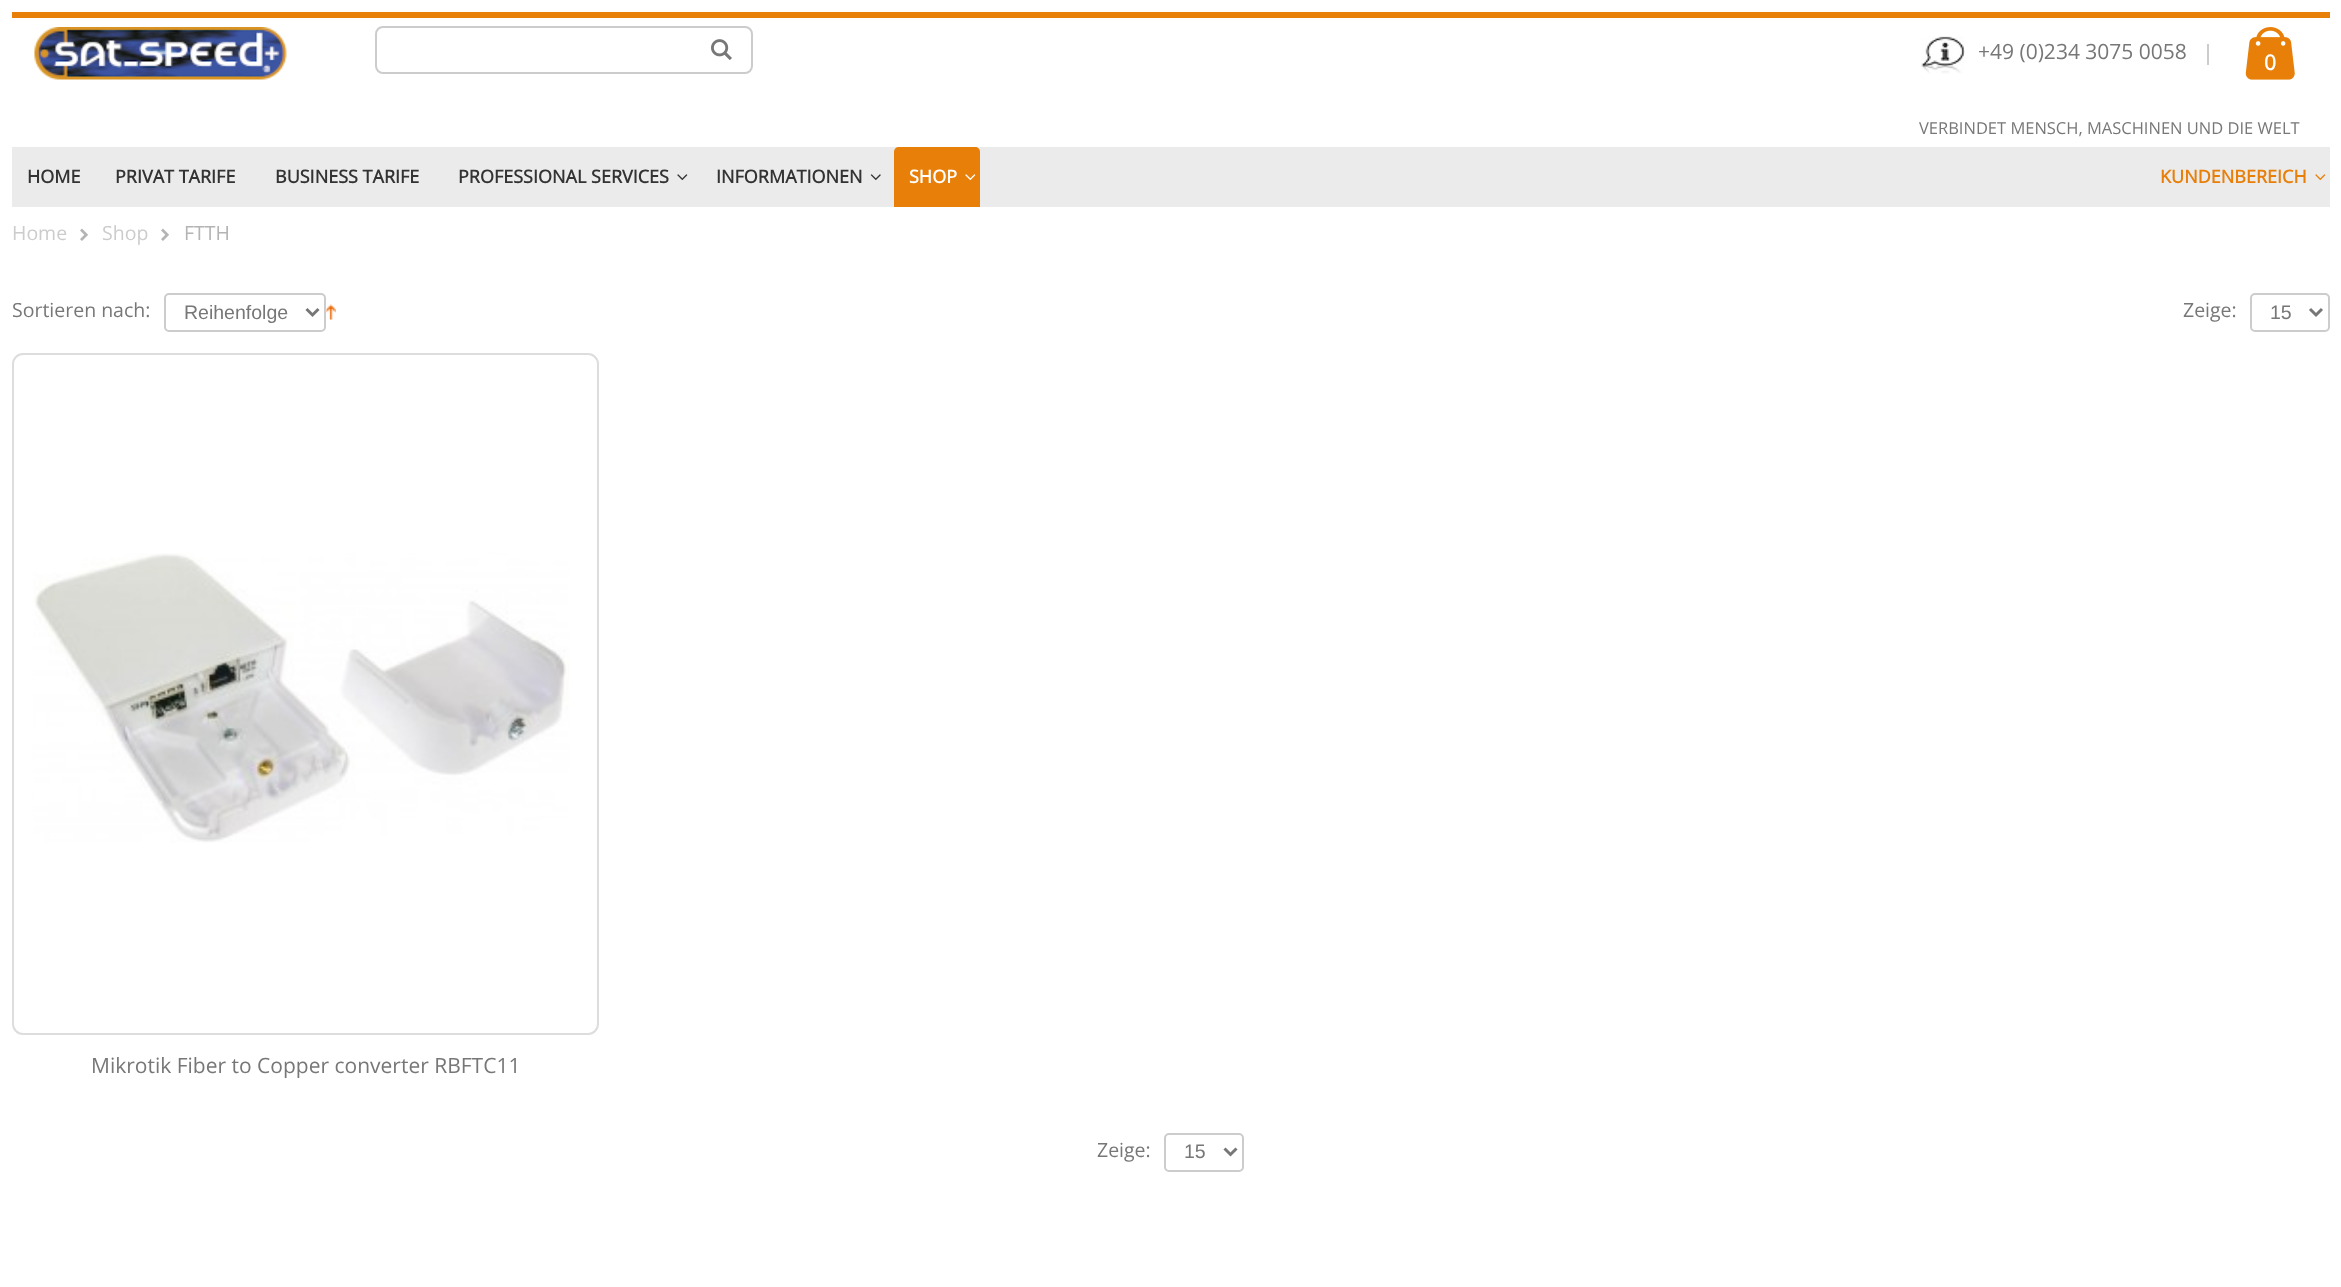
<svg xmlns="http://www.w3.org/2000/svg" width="2341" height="1287">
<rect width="100%" height="100%" fill="#fff"/>
<rect x="12" y="12" width="2318" height="6" fill="#e87f09"/>
<image x="34" y="27" width="253" height="53" href="media/1.png"/>
<rect x="376" y="27" width="376" height="46" rx="7" fill="none" stroke="#ccc" stroke-width="2"/>
<image x="711" y="39" width="21" height="21" href="media/2.png"/>
<image x="1921" y="36" width="44" height="38" href="media/3.png"/>
<text x="1978" y="59" style="font-family:Open Sans;font-size:21px;fill:#777">+49 (0)234 3075 0058</text>
<rect x="2207" y="44" width="2" height="21" fill="#ccc"/>
<image x="2245" y="27" width="50" height="53" href="media/4.png"/>
<text x="2264" y="70" style="font-family:Open Sans;font-size:21px;font-weight:bold;fill:#fff">0</text>
<text x="1919" y="134" style="font-family:Open Sans;font-size:16.5px;fill:#777">VERBINDET MENSCH, MASCHINEN UND DIE WELT</text>
<rect x="12" y="147" width="2318" height="60" fill="#ebebeb"/>
<text x="27" y="183" style="font-family:Open Sans;font-size:18px;font-weight:bold;fill:#333">HOME</text>
<text x="115" y="183" style="font-family:Open Sans;font-size:18px;font-weight:bold;fill:#333">PRIVAT TARIFE</text>
<text x="275" y="183" style="font-family:Open Sans;font-size:18px;font-weight:bold;fill:#333">BUSINESS TARIFE</text>
<text x="458" y="183" style="font-family:Open Sans;font-size:18px;font-weight:bold;fill:#333">PROFESSIONAL SERVICES</text>
<image x="677" y="174" width="11" height="7" href="media/5.png"/>
<text x="716" y="183" style="font-family:Open Sans;font-size:18px;font-weight:bold;fill:#333">INFORMATIONEN</text>
<image x="870" y="174" width="11" height="7" href="media/6.png"/>
<path d="M899 147h76c3 0 5 2 5 5v55h-86v-55c0-3 2-5 5-5z" fill="#e87f09"/>
<text x="909" y="183" style="font-family:Open Sans;font-size:18px;font-weight:bold;fill:#fff">SHOP</text>
<image x="965" y="174" width="11" height="7" href="media/7.png"/>
<text x="2160" y="183" style="font-family:Open Sans;font-size:18px;font-weight:bold;fill:#e87f09">KUNDENBEREICH</text>
<image x="2315" y="174" width="11" height="7" href="media/8.png"/>
<text x="12" y="240" style="font-family:Open Sans;font-size:19.5px;fill:#ccc">Home</text>
<image x="80" y="228" width="8" height="13" href="media/9.png"/>
<text x="102" y="240" style="font-family:Open Sans;font-size:19.5px;fill:#ccc">Shop</text>
<image x="161" y="228" width="8" height="13" href="media/9.png"/>
<text x="184" y="240" style="font-family:Open Sans;font-size:19.5px;fill:#b4b4b4">FTTH</text>
<text x="12" y="317" style="font-family:Open Sans;font-size:19.5px;fill:#777">Sortieren nach:</text>
<rect x="165" y="294" width="160" height="37" rx="4" fill="none" stroke="#ccc" stroke-width="2"/>
<path d="M306.5 309l6 6l6-6" fill="none" stroke="#777" stroke-width="3"/>
<text x="184" y="319" style="font-family:Liberation Sans;font-size:19.5px;fill:#777">Reihenfolge</text>
<image x="325" y="304" width="11" height="16" href="media/10.png"/>
<text x="2183" y="317" style="font-family:Open Sans;font-size:19.5px;fill:#777">Zeige:</text>
<rect x="2251" y="294" width="78" height="37" rx="4" fill="none" stroke="#ccc" stroke-width="2"/>
<path d="M2310 309l6 6l6-6" fill="none" stroke="#777" stroke-width="3"/>
<text x="2270" y="319" style="font-family:Liberation Sans;font-size:19.5px;fill:#777">15</text>
<rect x="13" y="354" width="585" height="680" rx="10" fill="none" stroke="#ddd" stroke-width="2"/>
<image x="33" y="553" width="536" height="290" href="media/11.png"/>
<text x="91" y="1073" style="font-family:Open Sans;font-size:21px;fill:#777">Mikrotik Fiber to Copper converter RBFTC11</text>
<text x="1097" y="1157" style="font-family:Open Sans;font-size:19.5px;fill:#777">Zeige:</text>
<rect x="1165" y="1134" width="78" height="37" rx="4" fill="none" stroke="#ccc" stroke-width="2"/>
<path d="M1224.5 1148.5l6 6l6-6" fill="none" stroke="#777" stroke-width="3"/>
<text x="1184" y="1158" style="font-family:Liberation Sans;font-size:19.5px;fill:#777">15</text>
</svg>
